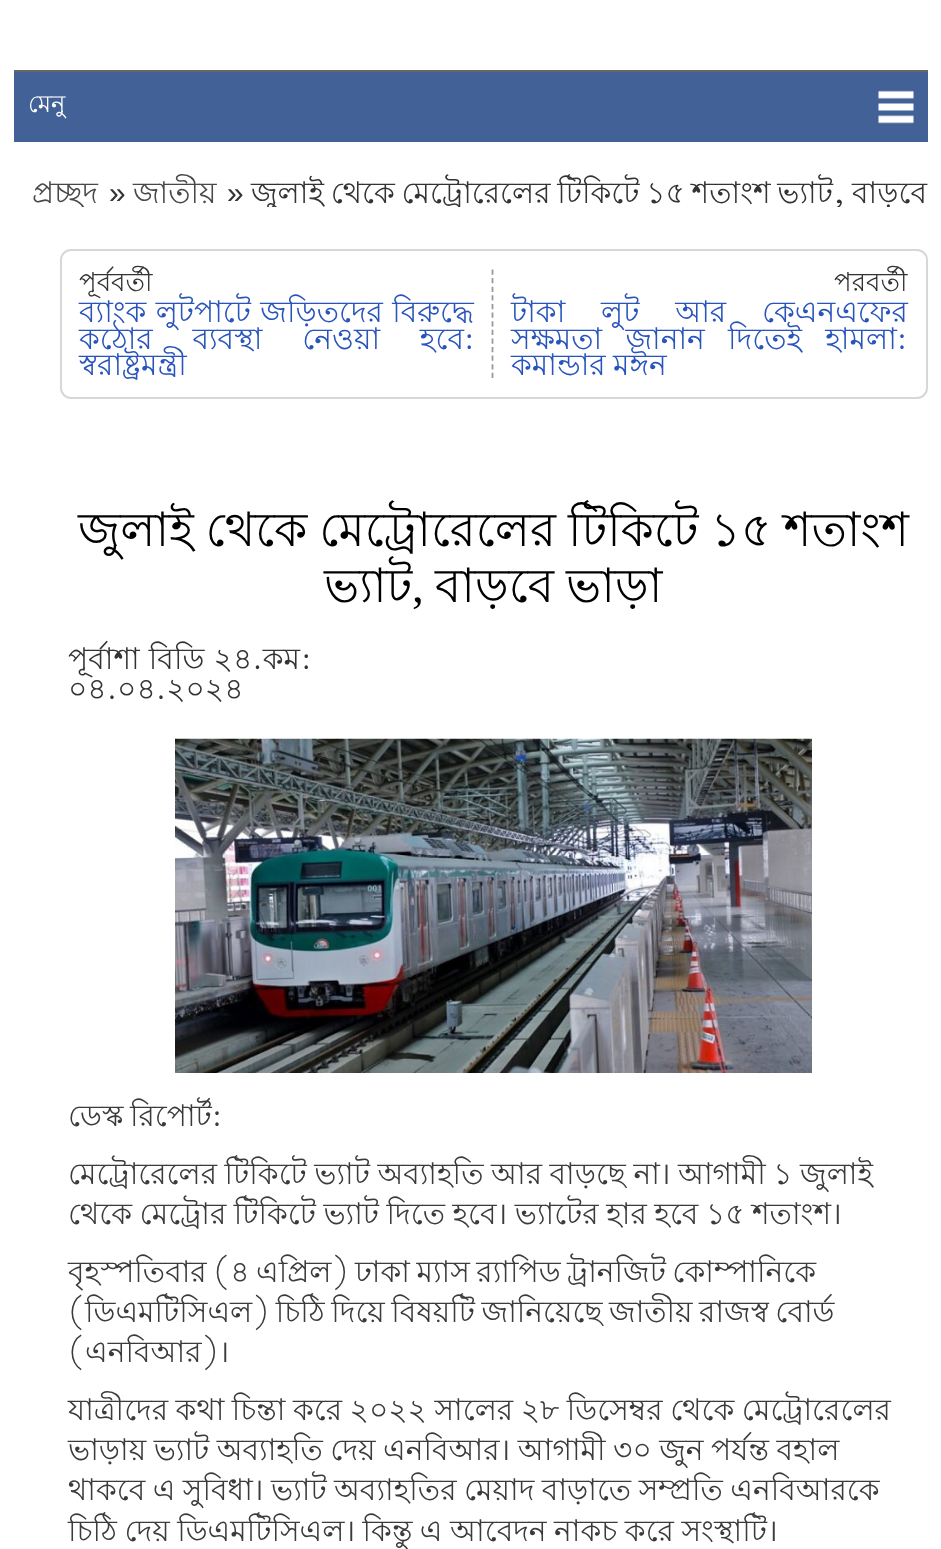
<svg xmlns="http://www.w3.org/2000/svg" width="941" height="1549">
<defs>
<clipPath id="clip1"><rect x="32" y="163" width="896" height="44"/></clipPath>
</defs>
<rect width="100%" height="100%" fill="#fff"/>
<rect x="14" y="72" width="914" height="70" fill="#426196"/>
<rect x="14" y="70" width="914" height="2" fill="#666"/>
<text x="28" y="112" style="font-family:Lohit Bengali;font-size:24px;fill:#fff">মেনু</text>
<image x="878" y="90" width="36" height="34" href="media/1.png"/>
<g clip-path="url(#clip1)">
<text x="32" y="203" style="font-family:Lohit Bengali;font-size:29.75px;fill:#484848">প্রচ্ছদ</text>
</g>
<text x="109" y="203" style="font-family:Liberation Sans;font-size:29.75px;fill:#333">»</text>
<text x="133" y="203" style="font-family:Lohit Bengali;font-size:29.75px;fill:#484848">জাতীয়</text>
<text x="227" y="203" style="font-family:Liberation Sans;font-size:29.75px;fill:#333">»</text>
<g clip-path="url(#clip1)">
<text x="251" y="203" word-spacing="-1.5" style="font-family:Lohit Bengali;font-size:29.75px;fill:#333">জুলাই থেকে মেট্রোরেলের টিকিটে ১৫ শতাংশ ভ্যাট, বাড়বে</text>
</g>
<rect x="61" y="250" width="866" height="148" rx="10" fill="none" stroke="#d7d7d7" stroke-width="2"/>
<path d="M492.5 269.5v108.5" fill="none" stroke="#999" stroke-width="1.8" stroke-dasharray="5.25 3.36"/>
<text x="79" y="291" style="font-family:Lohit Bengali;font-size:26px;fill:#333">পূর্ববর্তী</text>
<text x="79" y="322" word-spacing="1" style="font-family:Lohit Bengali;font-size:29.75px;fill:#2854bb">ব্যাংক লুটপাটে জড়িতদের বিরুদ্ধে</text>
<text x="79" y="349" word-spacing="31.5" style="font-family:Lohit Bengali;font-size:29.75px;fill:#2854bb">কঠোর ব্যবস্থা নেওয়া হবে:</text>
<text x="79" y="375" style="font-family:Lohit Bengali;font-size:29.75px;fill:#2854bb">স্বরাষ্ট্রমন্ত্রী</text>
<text x="834" y="291" style="font-family:Lohit Bengali;font-size:26px;fill:#333">পরবর্তী</text>
<text x="511" y="322" word-spacing="27.5" style="font-family:Lohit Bengali;font-size:29.75px;fill:#2854bb">টাকা লুট আর কেএনএফের</text>
<text x="511" y="349" word-spacing="15" style="font-family:Lohit Bengali;font-size:29.75px;fill:#2854bb">সক্ষমতা জানান দিতেই হামলা:</text>
<text x="511" y="375" word-spacing="-1" style="font-family:Lohit Bengali;font-size:29.75px;fill:#2854bb">কমান্ডার মঈন</text>
<text x="78" y="546" word-spacing="-1.25" style="font-family:Lohit Bengali;font-size:47.25px;fill:#000">জুলাই থেকে মেট্রোরেলের টিকিটে ১৫ শতাংশ</text>
<text x="324" y="602" style="font-family:Lohit Bengali;font-size:47.25px;fill:#000">ভ্যাট</text>
<text x="412" y="602" style="font-family:Liberation Serif;font-size:47.25px;fill:#000">,</text>
<text x="435" y="602" word-spacing="-1" style="font-family:Lohit Bengali;font-size:47.25px;fill:#000">বাড়বে ভাড়া</text>
<text x="68" y="669" word-spacing="1" style="font-family:Lohit Bengali;font-size:29.75px;fill:#333">পূর্বাশা বিডি ২৪.কম</text>
<text x="301" y="669" style="font-family:Lohit Bengali;font-size:29.75px;fill:#333">:</text>
<text x="68" y="699" style="font-family:Lohit Bengali;font-size:29.75px;fill:#333">০৪.০৪.২০২৪</text>
<image x="175" y="738" width="637" height="335" href="media/2.png"/>
<text x="68" y="1126" word-spacing="-1.75" style="font-family:Lohit Bengali;font-size:29.75px;fill:#3b3b3b">ডেস্ক রিপোর্ট:</text>
<text x="68" y="1184" word-spacing="-0.75" style="font-family:Lohit Bengali;font-size:29.75px;fill:#3b3b3b">মেট্রোরেলের টিকিটে ভ্যাট অব্যাহতি আর বাড়ছে না। আগামী ১ জুলাই</text>
<text x="68" y="1224" word-spacing="-0.75" style="font-family:Lohit Bengali;font-size:29.75px;fill:#3b3b3b">থেকে মেট্রোর টিকিটে ভ্যাট দিতে হবে। ভ্যাটের হার হবে ১৫ শতাংশ।</text>
<text x="68" y="1282" word-spacing="-1.75" style="font-family:Lohit Bengali;font-size:29.75px;fill:#3b3b3b">বৃহস্পতিবার (৪ এপ্রিল) ঢাকা ম্যাস র‍্যাপিড ট্রানজিট কোম্পানিকে</text>
<text x="68" y="1322" word-spacing="-1.75" style="font-family:Lohit Bengali;font-size:29.75px;fill:#3b3b3b">(ডিএমটিসিএল) চিঠি দিয়ে বিষয়টি জানিয়েছে জাতীয় রাজস্ব বোর্ড</text>
<text x="68" y="1362" style="font-family:Lohit Bengali;font-size:29.75px;fill:#3b3b3b">(এনবিআর)।</text>
<text x="68" y="1420" word-spacing="-0.75" style="font-family:Lohit Bengali;font-size:29.75px;fill:#3b3b3b">যাত্রীদের কথা চিন্তা করে ২০২২ সালের ২৮ ডিসেম্বর থেকে মেট্রোরেলের</text>
<text x="68" y="1460" word-spacing="-0.75" style="font-family:Lohit Bengali;font-size:29.75px;fill:#3b3b3b">ভাড়ায় ভ্যাট অব্যাহতি দেয় এনবিআর। আগামী ৩০ জুন পর্যন্ত বহাল</text>
<text x="68" y="1500" word-spacing="-0.75" style="font-family:Lohit Bengali;font-size:29.75px;fill:#3b3b3b">থাকবে এ সুবিধা। ভ্যাট অব্যাহতির মেয়াদ বাড়াতে সম্প্রতি এনবিআরকে</text>
<text x="68" y="1541" word-spacing="-0.75" style="font-family:Lohit Bengali;font-size:29.75px;fill:#3b3b3b">চিঠি দেয় ডিএমটিসিএল। কিন্তু এ আবেদন নাকচ করে সংস্থাটি।</text>
</svg>
